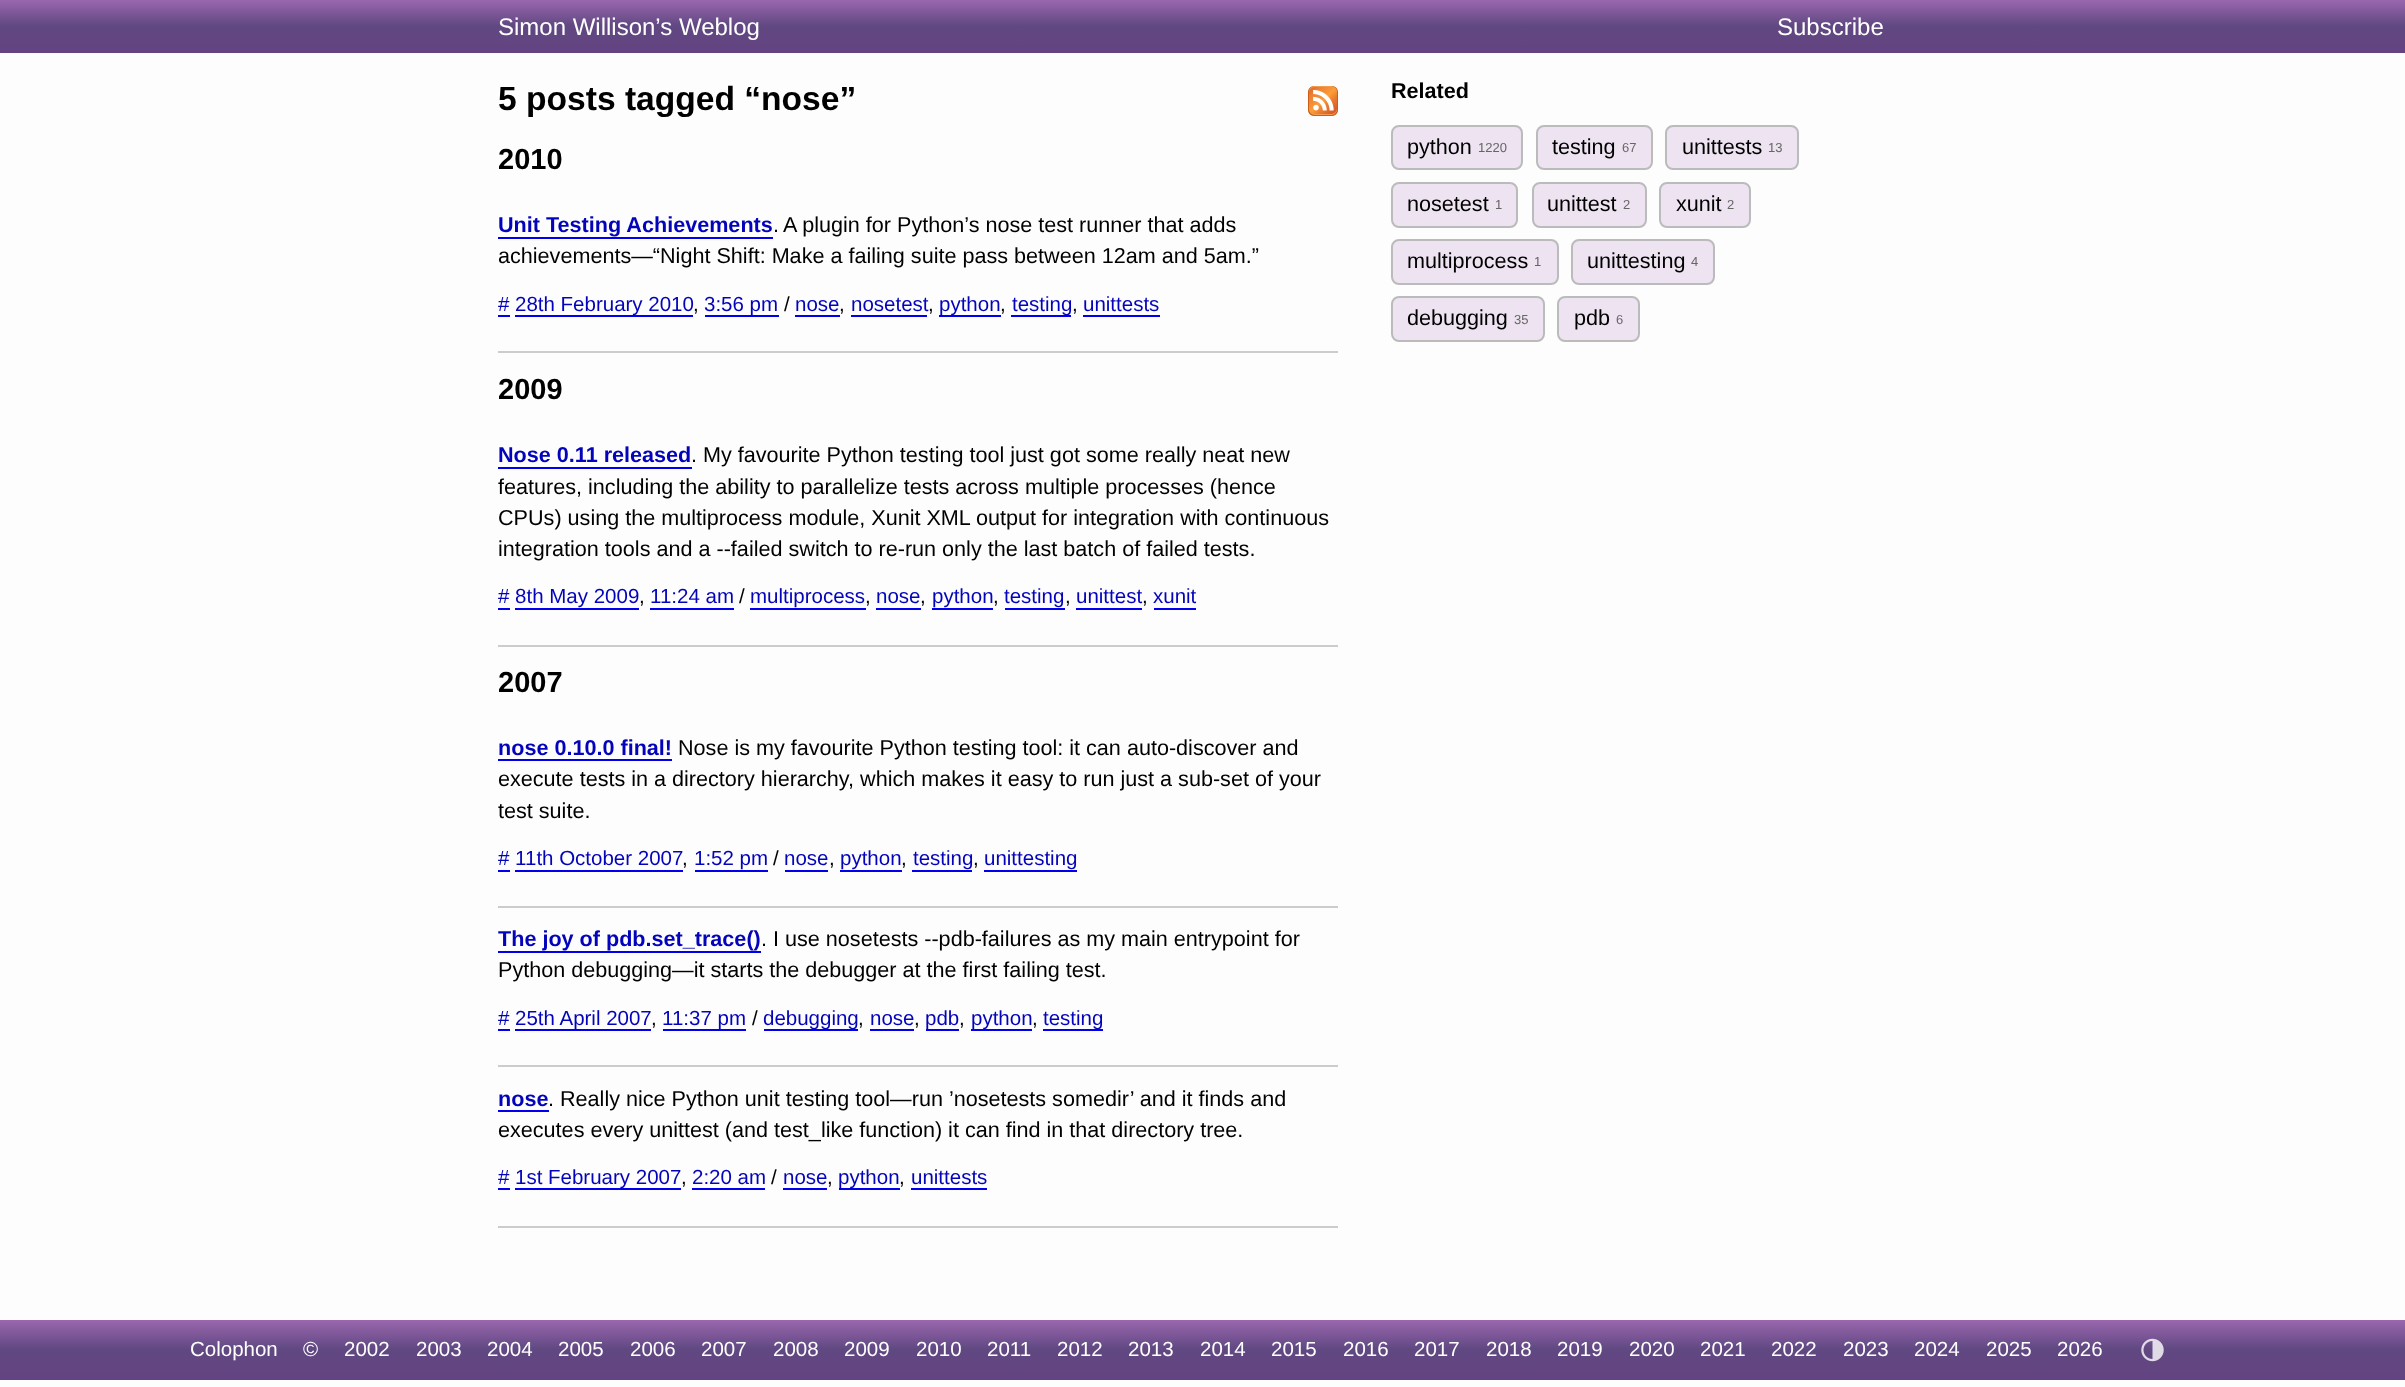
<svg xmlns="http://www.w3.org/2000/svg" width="2405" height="1387">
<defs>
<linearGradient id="g1" gradientUnits="userSpaceOnUse" x1="1203" y1="0" x2="1203" y2="53"><stop offset="0" stop-color="#9a67af"/><stop offset="0.49" stop-color="#604881"/><stop offset="1" stop-color="#644382"/></linearGradient>
<linearGradient id="g2" gradientUnits="userSpaceOnUse" x1="1203" y1="1320" x2="1203" y2="1380"><stop offset="0" stop-color="#9a67af"/><stop offset="0.49" stop-color="#604881"/><stop offset="1" stop-color="#644382"/></linearGradient>
</defs>
<rect width="100%" height="100%" fill="#fdfdfd"/>
<rect width="2405" height="53" fill="url(#g1)"/>
<text x="498" y="35" style="font-family:Liberation Sans;font-size:24px;fill:#fff">Simon Willison’s Weblog</text>
<text x="1777" y="35" style="font-family:Liberation Sans;font-size:24px;fill:#fff">Subscribe</text>
<text x="498" y="110" style="font-family:Liberation Sans;font-size:33.6px;font-weight:bold;fill:#000">5 posts tagged “nose”</text>
<image x="1308" y="86" width="30" height="30" href="media/1.png"/>
<text x="498" y="169" style="font-family:Liberation Sans;font-size:29px;font-weight:bold;fill:#000">2010</text>
<rect x="498" y="351" width="840" height="2" fill="#ccc"/>
<text x="498" y="232" style="font-family:Liberation Sans;font-size:21.6px;font-weight:bold;fill:#0303bb">Unit Testing Achievements</text>
<rect x="498" y="237" width="275" height="2" fill="#00e"/>
<text x="773" y="232" style="font-family:Liberation Sans;font-size:21.6px;fill:#000">.</text>
<text x="783" y="232" style="font-family:Liberation Sans;font-size:21.6px;fill:#000">A plugin for Python’s nose test runner that adds</text>
<text x="498" y="263" style="font-family:Liberation Sans;font-size:21.6px;fill:#000">achievements—“Night Shift: Make a failing suite pass between 12am and 5am.”</text>
<text x="498" y="311" style="font-family:Liberation Sans;font-size:20.5px;fill:#0303bb">#</text>
<rect x="498" y="315" width="12" height="2" fill="#00e"/>
<rect x="515" y="315" width="178" height="2" fill="#00e"/>
<text x="515" y="311" style="font-family:Liberation Sans;font-size:20.5px;fill:#0303bb">28th February 2010</text>
<text x="693" y="311" style="font-family:Liberation Sans;font-size:20.5px;fill:#000">,</text>
<rect x="705" y="315" width="74" height="2" fill="#00e"/>
<text x="704" y="311" style="font-family:Liberation Sans;font-size:20.5px;fill:#0303bb">3:56 pm</text>
<text x="784" y="311" style="font-family:Liberation Sans;font-size:20.5px;fill:#000">/</text>
<text x="795" y="311" style="font-family:Liberation Sans;font-size:20.5px;fill:#0303bb">nose</text>
<rect x="795" y="315" width="45" height="2" fill="#00e"/>
<text x="839" y="311" style="font-family:Liberation Sans;font-size:20.5px;fill:#000">,</text>
<text x="851" y="311" style="font-family:Liberation Sans;font-size:20.5px;fill:#0303bb">nosetest</text>
<rect x="851" y="315" width="76" height="2" fill="#00e"/>
<text x="928" y="311" style="font-family:Liberation Sans;font-size:20.5px;fill:#000">,</text>
<rect x="939" y="315" width="62" height="2" fill="#00e"/>
<text x="939" y="311" style="font-family:Liberation Sans;font-size:20.5px;fill:#0303bb">python</text>
<text x="1000" y="311" style="font-family:Liberation Sans;font-size:20.5px;fill:#000">,</text>
<rect x="1011" y="315" width="60" height="2" fill="#00e"/>
<text x="1012" y="311" style="font-family:Liberation Sans;font-size:20.5px;fill:#0303bb">testing</text>
<text x="1072" y="311" style="font-family:Liberation Sans;font-size:20.5px;fill:#000">,</text>
<text x="1083" y="311" style="font-family:Liberation Sans;font-size:20.5px;fill:#0303bb">unittests</text>
<rect x="1083" y="315" width="77" height="2" fill="#00e"/>
<text x="498" y="399" style="font-family:Liberation Sans;font-size:29px;font-weight:bold;fill:#000">2009</text>
<rect x="498" y="645" width="840" height="2" fill="#ccc"/>
<text x="498" y="462" style="font-family:Liberation Sans;font-size:21.6px;font-weight:bold;fill:#0303bb">Nose 0.11 released</text>
<rect x="498" y="467" width="194" height="2" fill="#00e"/>
<text x="691" y="462" style="font-family:Liberation Sans;font-size:21.6px;fill:#000">. My favourite Python testing tool just got some really neat new</text>
<text x="498" y="494" style="font-family:Liberation Sans;font-size:21.6px;fill:#000">features, including the ability to parallelize tests across multiple processes (hence</text>
<text x="498" y="525" style="font-family:Liberation Sans;font-size:21.6px;fill:#000">CPUs) using the multiprocess module, Xunit XML output for integration with continuous</text>
<text x="498" y="556" style="font-family:Liberation Sans;font-size:21.6px;fill:#000">integration tools and a --failed switch to re-run only the last batch of failed tests.</text>
<text x="498" y="603" style="font-family:Liberation Sans;font-size:20.5px;fill:#0303bb"># 8th May 2009</text>
<rect x="498" y="608" width="12" height="2" fill="#00e"/>
<text x="639" y="603" style="font-family:Liberation Sans;font-size:20.5px;fill:#000">,</text>
<text x="650" y="603" style="font-family:Liberation Sans;font-size:20.5px;fill:#0303bb">11:24 am</text>
<rect x="650" y="608" width="84" height="2" fill="#00e"/>
<text x="739" y="603" style="font-family:Liberation Sans;font-size:20.5px;fill:#000">/</text>
<text x="750" y="603" style="font-family:Liberation Sans;font-size:20.5px;fill:#0303bb">multiprocess</text>
<rect x="750" y="608" width="116" height="2" fill="#00e"/>
<text x="865" y="603" style="font-family:Liberation Sans;font-size:20.5px;fill:#000">,</text>
<text x="876" y="603" style="font-family:Liberation Sans;font-size:20.5px;fill:#0303bb">nose</text>
<rect x="876" y="608" width="45" height="2" fill="#00e"/>
<text x="920" y="603" style="font-family:Liberation Sans;font-size:20.5px;fill:#000">,</text>
<text x="932" y="603" style="font-family:Liberation Sans;font-size:20.5px;fill:#0303bb">python</text>
<rect x="932" y="608" width="61" height="2" fill="#00e"/>
<text x="993" y="603" style="font-family:Liberation Sans;font-size:20.5px;fill:#000">,</text>
<text x="1004" y="603" style="font-family:Liberation Sans;font-size:20.5px;fill:#0303bb">testing</text>
<rect x="1005" y="608" width="60" height="2" fill="#00e"/>
<text x="1065" y="603" style="font-family:Liberation Sans;font-size:20.5px;fill:#000">,</text>
<text x="1076" y="603" style="font-family:Liberation Sans;font-size:20.5px;fill:#0303bb">unittest</text>
<rect x="1076" y="608" width="66" height="2" fill="#00e"/>
<text x="1142" y="603" style="font-family:Liberation Sans;font-size:20.5px;fill:#000">,</text>
<text x="1153" y="603" style="font-family:Liberation Sans;font-size:20.5px;fill:#0303bb">xunit</text>
<rect x="1154" y="608" width="42" height="2" fill="#00e"/>
<rect x="515" y="608" width="124" height="2" fill="#00e"/>
<text x="498" y="692" style="font-family:Liberation Sans;font-size:29px;font-weight:bold;fill:#000">2007</text>
<rect x="498" y="906" width="840" height="2" fill="#ccc"/>
<text x="498" y="755" style="font-family:Liberation Sans;font-size:21.6px;font-weight:bold;fill:#0303bb">nose 0.10.0 final!</text>
<rect x="498" y="759" width="174" height="2" fill="#00e"/>
<text x="678" y="755" style="font-family:Liberation Sans;font-size:21.6px;fill:#000">Nose is my favourite Python testing tool: it can auto-discover and</text>
<text x="498" y="786" style="font-family:Liberation Sans;font-size:21.6px;fill:#000">execute tests in a directory hierarchy, which makes it easy to run just a sub-set of your</text>
<text x="498" y="818" style="font-family:Liberation Sans;font-size:21.6px;fill:#000">test suite.</text>
<text x="498" y="865" style="font-family:Liberation Sans;font-size:20.5px;fill:#0303bb"># 11th October 2007</text>
<rect x="498" y="870" width="12" height="2" fill="#00e"/>
<text x="682" y="865" style="font-family:Liberation Sans;font-size:20.5px;fill:#000">,</text>
<text x="694" y="865" style="font-family:Liberation Sans;font-size:20.5px;fill:#0303bb">1:52 pm</text>
<rect x="695" y="870" width="73" height="2" fill="#00e"/>
<text x="773" y="865" style="font-family:Liberation Sans;font-size:20.5px;fill:#000">/</text>
<text x="784" y="865" style="font-family:Liberation Sans;font-size:20.5px;fill:#0303bb">nose</text>
<rect x="785" y="870" width="43" height="2" fill="#00e"/>
<text x="829" y="865" style="font-family:Liberation Sans;font-size:20.5px;fill:#000">,</text>
<text x="840" y="865" style="font-family:Liberation Sans;font-size:20.5px;fill:#0303bb">python</text>
<rect x="840" y="870" width="62" height="2" fill="#00e"/>
<text x="901" y="865" style="font-family:Liberation Sans;font-size:20.5px;fill:#000">,</text>
<text x="913" y="865" style="font-family:Liberation Sans;font-size:20.5px;fill:#0303bb">testing</text>
<rect x="912" y="870" width="60" height="2" fill="#00e"/>
<text x="973" y="865" style="font-family:Liberation Sans;font-size:20.5px;fill:#000">,</text>
<text x="984" y="865" style="font-family:Liberation Sans;font-size:20.5px;fill:#0303bb">unittesting</text>
<rect x="984" y="870" width="93" height="2" fill="#00e"/>
<rect x="515" y="870" width="168" height="2" fill="#00e"/>
<rect x="498" y="1065" width="840" height="2" fill="#ccc"/>
<text x="498" y="946" style="font-family:Liberation Sans;font-size:21.6px;font-weight:bold;fill:#0303bb">The joy of pdb.set_trace()</text>
<rect x="498" y="951" width="263" height="2" fill="#00e"/>
<text x="761" y="946" style="font-family:Liberation Sans;font-size:21.6px;fill:#000">. I use nosetests --pdb-failures as my main entrypoint for</text>
<text x="498" y="977" style="font-family:Liberation Sans;font-size:21.6px;fill:#000">Python debugging—it starts the debugger at the first failing test.</text>
<text x="498" y="1025" style="font-family:Liberation Sans;font-size:20.5px;fill:#0303bb">#</text>
<rect x="498" y="1029" width="12" height="2" fill="#00e"/>
<rect x="515" y="1029" width="136" height="2" fill="#00e"/>
<text x="515" y="1025" style="font-family:Liberation Sans;font-size:20.5px;fill:#0303bb">25th April 2007</text>
<text x="651" y="1025" style="font-family:Liberation Sans;font-size:20.5px;fill:#000">,</text>
<rect x="663" y="1029" width="83" height="2" fill="#00e"/>
<text x="662" y="1025" style="font-family:Liberation Sans;font-size:20.5px;fill:#0303bb">11:37 pm</text>
<text x="752" y="1025" style="font-family:Liberation Sans;font-size:20.5px;fill:#000">/</text>
<rect x="764" y="1029" width="94" height="2" fill="#00e"/>
<text x="763" y="1025" style="font-family:Liberation Sans;font-size:20.5px;fill:#0303bb">debugging</text>
<text x="858" y="1025" style="font-family:Liberation Sans;font-size:20.5px;fill:#000">,</text>
<text x="870" y="1025" style="font-family:Liberation Sans;font-size:20.5px;fill:#0303bb">nose</text>
<rect x="870" y="1029" width="44" height="2" fill="#00e"/>
<text x="914" y="1025" style="font-family:Liberation Sans;font-size:20.5px;fill:#000">,</text>
<rect x="926" y="1029" width="33" height="2" fill="#00e"/>
<text x="925" y="1025" style="font-family:Liberation Sans;font-size:20.5px;fill:#0303bb">pdb</text>
<text x="959" y="1025" style="font-family:Liberation Sans;font-size:20.5px;fill:#000">,</text>
<rect x="971" y="1029" width="61" height="2" fill="#00e"/>
<text x="971" y="1025" style="font-family:Liberation Sans;font-size:20.5px;fill:#0303bb">python</text>
<text x="1032" y="1025" style="font-family:Liberation Sans;font-size:20.5px;fill:#000">,</text>
<rect x="1043" y="1029" width="60" height="2" fill="#00e"/>
<text x="1043" y="1025" style="font-family:Liberation Sans;font-size:20.5px;fill:#0303bb">testing</text>
<rect x="498" y="1226" width="840" height="2" fill="#ccc"/>
<text x="498" y="1106" style="font-family:Liberation Sans;font-size:21.6px;font-weight:bold;fill:#0303bb">nose</text>
<rect x="498" y="1110" width="51" height="2" fill="#00e"/>
<text x="548" y="1106" style="font-family:Liberation Sans;font-size:21.6px;fill:#000">. Really nice Python unit testing tool—run ’nosetests somedir’ and it finds and</text>
<text x="498" y="1137" style="font-family:Liberation Sans;font-size:21.6px;fill:#000">executes every unittest (and test_like function) it can find in that directory tree.</text>
<text x="498" y="1184" style="font-family:Liberation Sans;font-size:20.5px;fill:#0303bb">#</text>
<rect x="498" y="1188" width="12" height="2" fill="#00e"/>
<rect x="515" y="1188" width="166" height="2" fill="#00e"/>
<text x="515" y="1184" style="font-family:Liberation Sans;font-size:20.5px;fill:#0303bb">1st February 2007</text>
<text x="681" y="1184" style="font-family:Liberation Sans;font-size:20.5px;fill:#000">,</text>
<text x="692" y="1184" style="font-family:Liberation Sans;font-size:20.5px;fill:#0303bb">2:20 am</text>
<rect x="692" y="1188" width="73" height="2" fill="#00e"/>
<text x="771" y="1184" style="font-family:Liberation Sans;font-size:20.5px;fill:#000">/</text>
<text x="783" y="1184" style="font-family:Liberation Sans;font-size:20.5px;fill:#0303bb">nose</text>
<rect x="783" y="1188" width="44" height="2" fill="#00e"/>
<text x="827" y="1184" style="font-family:Liberation Sans;font-size:20.5px;fill:#000">,</text>
<rect x="839" y="1188" width="61" height="2" fill="#00e"/>
<text x="838" y="1184" style="font-family:Liberation Sans;font-size:20.5px;fill:#0303bb">python</text>
<text x="899" y="1184" style="font-family:Liberation Sans;font-size:20.5px;fill:#000">,</text>
<text x="911" y="1184" style="font-family:Liberation Sans;font-size:20.5px;fill:#0303bb">unittests</text>
<rect x="911" y="1188" width="76" height="2" fill="#00e"/>
<text x="1391" y="98" style="font-family:Liberation Sans;font-size:21.6px;font-weight:bold;fill:#000">Related</text>
<rect x="1392" y="126" width="130" height="43" rx="7" fill="#ede3f1" stroke="#bbb" stroke-width="2"/>
<text x="1407" y="154" style="font-family:Liberation Sans;font-size:21.6px;fill:#000">python</text>
<text x="1478" y="152" style="font-family:Liberation Sans;font-size:13px;fill:#666">1220</text>
<rect x="1537" y="126" width="115" height="43" rx="7" fill="#ede3f1" stroke="#bbb" stroke-width="2"/>
<text x="1552" y="154" style="font-family:Liberation Sans;font-size:21.6px;fill:#000">testing</text>
<text x="1622" y="152" style="font-family:Liberation Sans;font-size:13px;fill:#666">67</text>
<rect x="1666" y="126" width="132" height="43" rx="7" fill="#ede3f1" stroke="#bbb" stroke-width="2"/>
<text x="1682" y="154" style="font-family:Liberation Sans;font-size:21.6px;fill:#000">unittests</text>
<text x="1768" y="152" style="font-family:Liberation Sans;font-size:13px;fill:#666">13</text>
<rect x="1392" y="183" width="125" height="44" rx="7" fill="#ede3f1" stroke="#bbb" stroke-width="2"/>
<text x="1407" y="211" style="font-family:Liberation Sans;font-size:21.6px;fill:#000">nosetest</text>
<text x="1495" y="209" style="font-family:Liberation Sans;font-size:13px;fill:#666">1</text>
<rect x="1533" y="183" width="113" height="44" rx="7" fill="#ede3f1" stroke="#bbb" stroke-width="2"/>
<text x="1547" y="211" style="font-family:Liberation Sans;font-size:21.6px;fill:#000">unittest</text>
<text x="1623" y="209" style="font-family:Liberation Sans;font-size:13px;fill:#666">2</text>
<rect x="1660" y="183" width="90" height="44" rx="7" fill="#ede3f1" stroke="#bbb" stroke-width="2"/>
<text x="1676" y="211" style="font-family:Liberation Sans;font-size:21.6px;fill:#000">xunit</text>
<text x="1727" y="209" style="font-family:Liberation Sans;font-size:13px;fill:#666">2</text>
<rect x="1392" y="240" width="166" height="44" rx="7" fill="#ede3f1" stroke="#bbb" stroke-width="2"/>
<text x="1407" y="268" style="font-family:Liberation Sans;font-size:21.6px;fill:#000">multiprocess</text>
<text x="1534" y="266" style="font-family:Liberation Sans;font-size:13px;fill:#666">1</text>
<rect x="1572" y="240" width="142" height="44" rx="7" fill="#ede3f1" stroke="#bbb" stroke-width="2"/>
<text x="1587" y="268" style="font-family:Liberation Sans;font-size:21.6px;fill:#000">unittesting</text>
<text x="1691" y="266" style="font-family:Liberation Sans;font-size:13px;fill:#666">4</text>
<rect x="1392" y="297" width="152" height="44" rx="7" fill="#ede3f1" stroke="#bbb" stroke-width="2"/>
<text x="1407" y="325" style="font-family:Liberation Sans;font-size:21.6px;fill:#000">debugging</text>
<text x="1514" y="324" style="font-family:Liberation Sans;font-size:13px;fill:#666">35</text>
<rect x="1558" y="297" width="81" height="44" rx="7" fill="#ede3f1" stroke="#bbb" stroke-width="2"/>
<text x="1574" y="325" style="font-family:Liberation Sans;font-size:21.6px;fill:#000">pdb</text>
<text x="1616" y="324" style="font-family:Liberation Sans;font-size:13px;fill:#666">6</text>
<rect y="1320" width="2405" height="60" fill="url(#g2)"/>
<text x="190" y="1356" style="font-family:Liberation Sans;font-size:20.5px;fill:#fff">Colophon</text>
<text x="303" y="1356" style="font-family:Liberation Sans;font-size:20.5px;fill:#fff">©</text>
<text x="344" y="1356" style="font-family:Liberation Sans;font-size:20.5px;fill:#fff">2002</text>
<text x="416" y="1356" style="font-family:Liberation Sans;font-size:20.5px;fill:#fff">2003</text>
<text x="487" y="1356" style="font-family:Liberation Sans;font-size:20.5px;fill:#fff">2004</text>
<text x="558" y="1356" style="font-family:Liberation Sans;font-size:20.5px;fill:#fff">2005</text>
<text x="630" y="1356" style="font-family:Liberation Sans;font-size:20.5px;fill:#fff">2006</text>
<text x="701" y="1356" style="font-family:Liberation Sans;font-size:20.5px;fill:#fff">2007</text>
<text x="773" y="1356" style="font-family:Liberation Sans;font-size:20.5px;fill:#fff">2008</text>
<text x="844" y="1356" style="font-family:Liberation Sans;font-size:20.5px;fill:#fff">2009</text>
<text x="916" y="1356" style="font-family:Liberation Sans;font-size:20.5px;fill:#fff">2010</text>
<text x="987" y="1356" style="font-family:Liberation Sans;font-size:20.5px;fill:#fff">2011</text>
<text x="1057" y="1356" style="font-family:Liberation Sans;font-size:20.5px;fill:#fff">2012</text>
<text x="1128" y="1356" style="font-family:Liberation Sans;font-size:20.5px;fill:#fff">2013</text>
<text x="1200" y="1356" style="font-family:Liberation Sans;font-size:20.5px;fill:#fff">2014</text>
<text x="1271" y="1356" style="font-family:Liberation Sans;font-size:20.5px;fill:#fff">2015</text>
<text x="1343" y="1356" style="font-family:Liberation Sans;font-size:20.5px;fill:#fff">2016</text>
<text x="1414" y="1356" style="font-family:Liberation Sans;font-size:20.5px;fill:#fff">2017</text>
<text x="1486" y="1356" style="font-family:Liberation Sans;font-size:20.5px;fill:#fff">2018</text>
<text x="1557" y="1356" style="font-family:Liberation Sans;font-size:20.5px;fill:#fff">2019</text>
<text x="1629" y="1356" style="font-family:Liberation Sans;font-size:20.5px;fill:#fff">2020</text>
<text x="1700" y="1356" style="font-family:Liberation Sans;font-size:20.5px;fill:#fff">2021</text>
<text x="1771" y="1356" style="font-family:Liberation Sans;font-size:20.5px;fill:#fff">2022</text>
<text x="1843" y="1356" style="font-family:Liberation Sans;font-size:20.5px;fill:#fff">2023</text>
<text x="1914" y="1356" style="font-family:Liberation Sans;font-size:20.5px;fill:#fff">2024</text>
<text x="1986" y="1356" style="font-family:Liberation Sans;font-size:20.5px;fill:#fff">2025</text>
<text x="2057" y="1356" style="font-family:Liberation Sans;font-size:20.5px;fill:#fff">2026</text>
<image x="2141" y="1338" width="23" height="24" href="media/2.png"/>
</svg>
